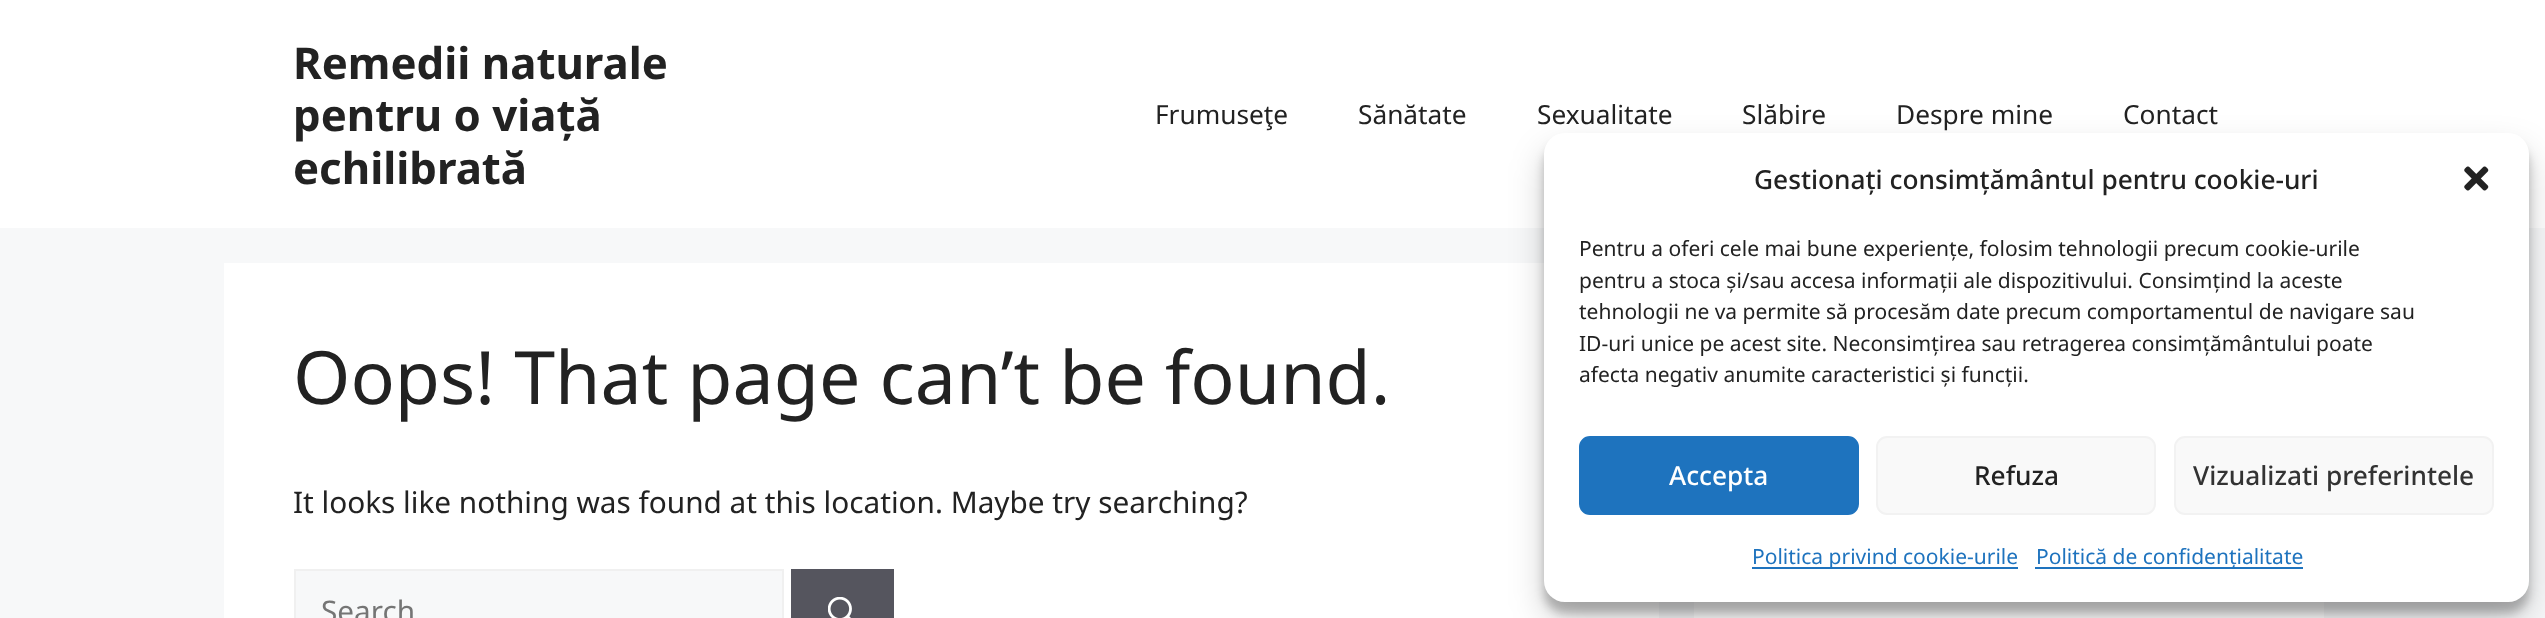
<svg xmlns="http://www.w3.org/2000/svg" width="2545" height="618">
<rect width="100%" height="100%" fill="#f7f8f9"/>
<rect width="2545" height="228" fill="#fff"/>
<text x="293" y="79" style="font-family:Noto Sans;font-size:43.75px;font-weight:bold;fill:#222">Remedii naturale</text>
<text x="293" y="131" style="font-family:Noto Sans;font-size:43.75px;font-weight:bold;fill:#222">pentru o viață</text>
<text x="293" y="184" style="font-family:Noto Sans;font-size:43.75px;font-weight:bold;fill:#222">echilibrată</text>
<text x="1155" y="124" style="font-family:Noto Sans;font-size:26.25px;fill:#222">Frumuseţe</text>
<text x="1358" y="124" style="font-family:Noto Sans;font-size:26.25px;fill:#222">Sănătate</text>
<text x="1537" y="124" style="font-family:Noto Sans;font-size:26.25px;fill:#222">Sexualitate</text>
<text x="1742" y="124" style="font-family:Noto Sans;font-size:26.25px;fill:#222">Slăbire</text>
<text x="1896" y="124" style="font-family:Noto Sans;font-size:26.25px;fill:#222">Despre mine</text>
<text x="2123" y="124" style="font-family:Noto Sans;font-size:26.25px;fill:#222">Contact</text>
<rect x="224" y="263" width="1435" height="355" fill="#fff"/>
<text x="293" y="404" style="font-family:Noto Sans;font-size:73.5px;fill:#222">Oops! That page can’t be found.</text>
<text x="293" y="513" style="font-family:Noto Sans;font-size:29.75px;fill:#222">It looks like nothing was found at this location. Maybe try searching?</text>
<rect x="295" y="570" width="488" height="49" fill="#f7f8f9" stroke="#f0f0f0" stroke-width="2"/>
<text x="321" y="622" style="font-family:Noto Sans;font-size:29.75px;fill:#757575">Search</text>
<rect x="791" y="569" width="103" height="49" fill="#55555e"/>
<image x="828" y="597" width="24" height="21" href="media/1.png"/>
<rect x="1694" y="602" width="630" height="16" fill="#fff"/>
<rect x="1544" y="144" width="985" height="469" rx="21" fill="#0000003b" filter="blur(5px)"/>
<rect x="1544" y="151" width="985" height="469" rx="21" fill="#00000030" filter="blur(17.5px)"/>
<rect x="1544" y="133" width="985" height="469" rx="21" fill="#fff"/>
<text x="1754" y="189" style="font-family:Noto Sans;font-size:26.25px;font-weight:500;fill:#222">Gestionați consimțământul pentru cookie-uri</text>
<image x="2464" y="166" width="25" height="25" href="media/2.png"/>
<text x="1579" y="256" style="font-family:Noto Sans;font-size:21px;fill:#222">Pentru a oferi cele mai bune experiențe, folosim tehnologii precum cookie-urile</text>
<text x="1579" y="288" style="font-family:Noto Sans;font-size:21px;fill:#222">pentru a stoca și/sau accesa informații ale dispozitivului. Consimțind la aceste</text>
<text x="1579" y="319" style="font-family:Noto Sans;font-size:21px;fill:#222">tehnologii ne va permite să procesăm date precum comportamentul de navigare sau</text>
<text x="1579" y="351" style="font-family:Noto Sans;font-size:21px;fill:#222">ID-uri unice pe acest site. Neconsimțirea sau retragerea consimțământului poate</text>
<text x="1579" y="382" style="font-family:Noto Sans;font-size:21px;fill:#222">afecta negativ anumite caracteristici și funcții.</text>
<rect x="1580" y="437" width="278" height="77" rx="10" fill="#1e73be" stroke="#1e73be" stroke-width="2"/>
<text x="1669" y="485" style="font-family:Noto Sans;font-size:26.25px;font-weight:500;fill:#fff">Accepta</text>
<rect x="1877" y="437" width="278" height="77" rx="10" fill="#f9f9f9" stroke="#f2f2f2" stroke-width="2"/>
<text x="1974" y="485" style="font-family:Noto Sans;font-size:26.25px;font-weight:500;fill:#222">Refuza</text>
<rect x="2175" y="437" width="318" height="77" rx="10" fill="#f9f9f9" stroke="#f2f2f2" stroke-width="2"/>
<text x="2193" y="485" style="font-family:Noto Sans;font-size:26.25px;font-weight:500;fill:#333">Vizualizati preferintele</text>
<rect x="1752" y="567" width="266" height="2" fill="#1e73be"/>
<text x="1752" y="564" style="font-family:Noto Sans;font-size:21px;fill:#1e73be">Politica privind cookie-urile</text>
<rect x="2035" y="567" width="268" height="2" fill="#1e73be"/>
<text x="2036" y="564" style="font-family:Noto Sans;font-size:21px;fill:#1e73be">Politică de confidențialitate</text>
</svg>
